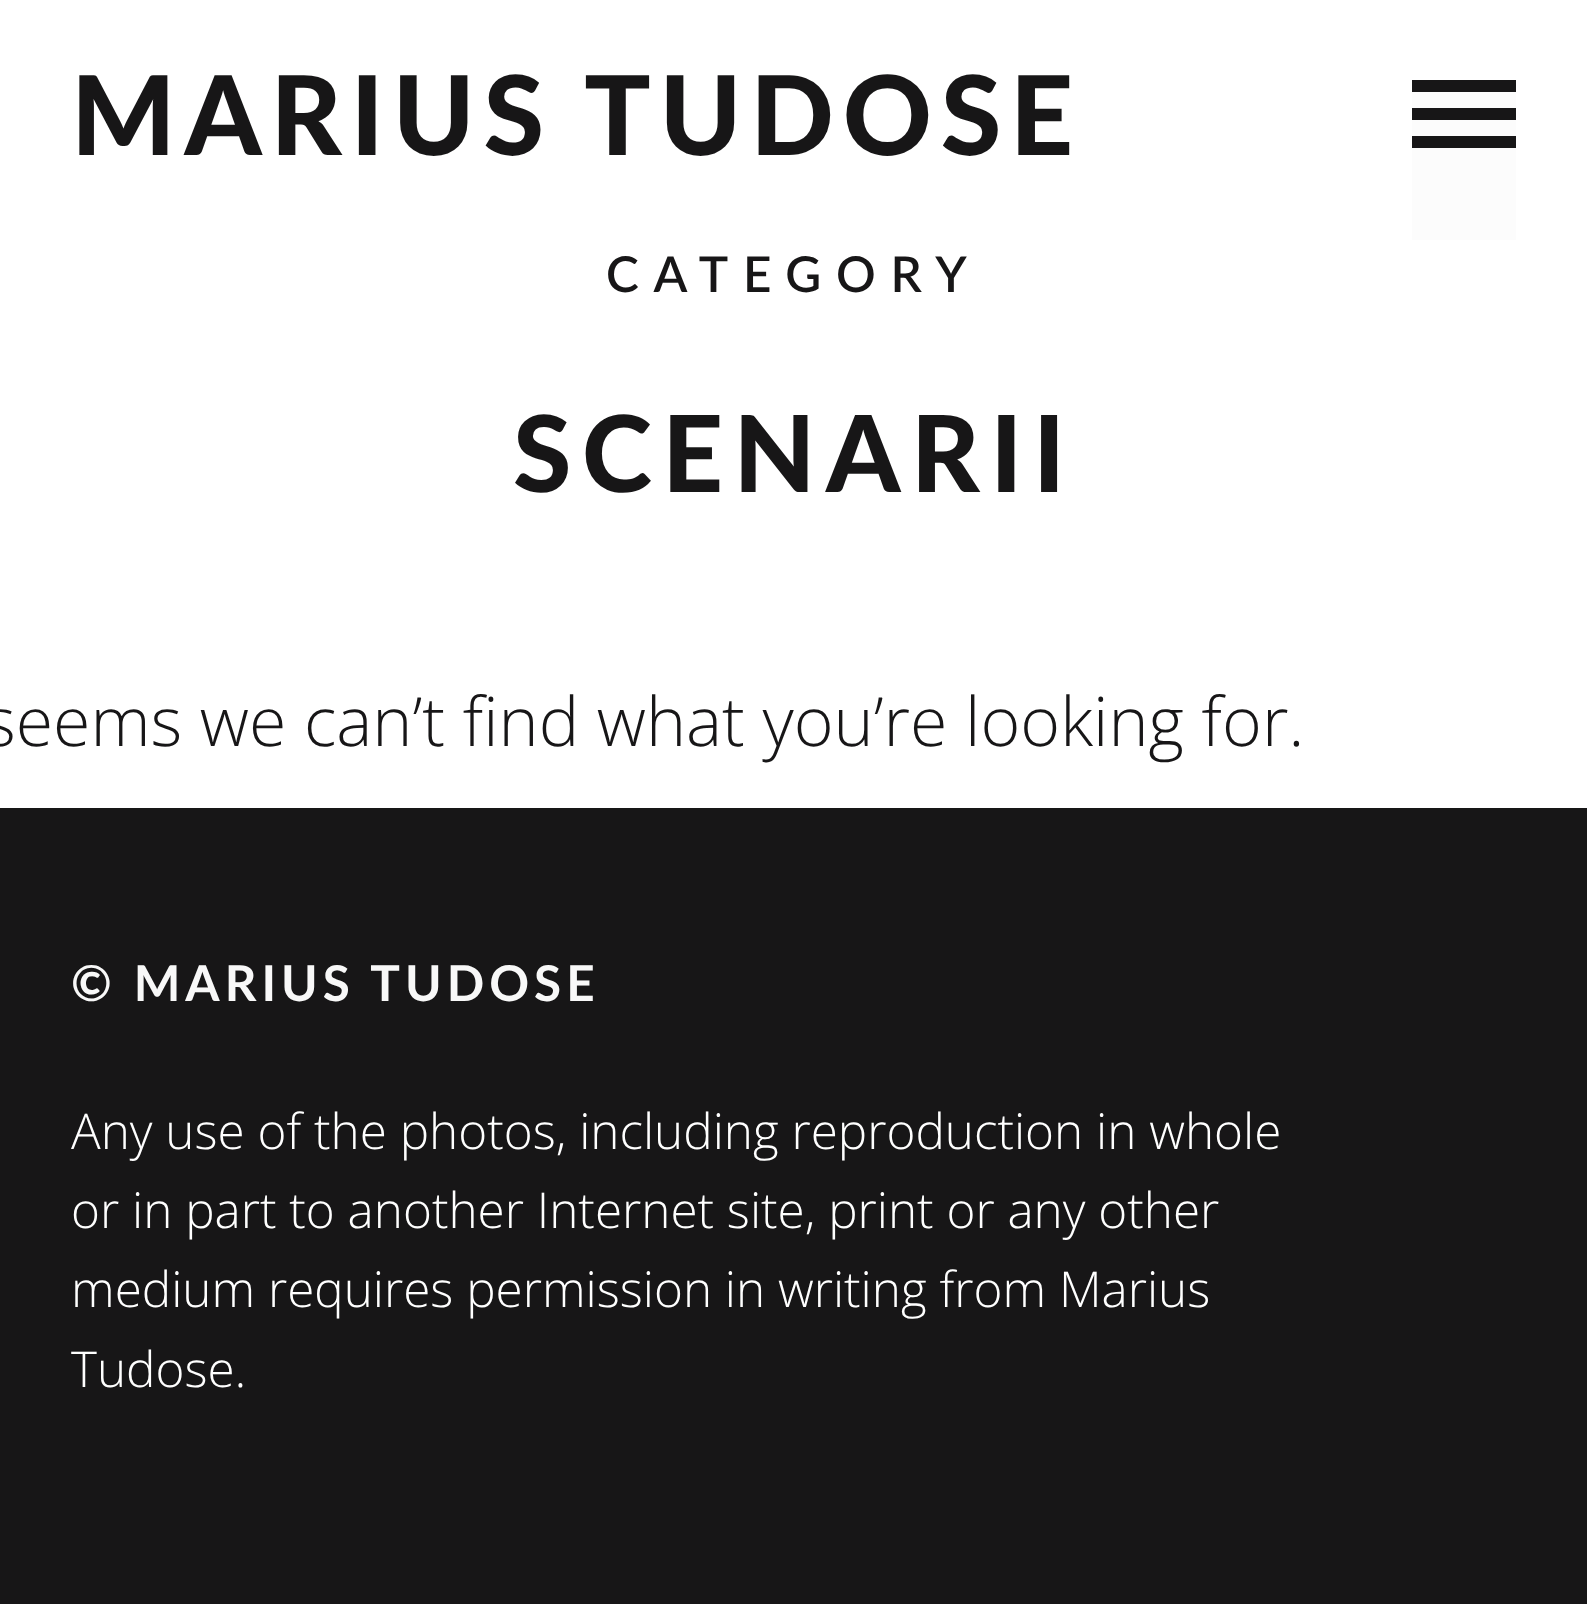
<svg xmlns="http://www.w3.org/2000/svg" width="1587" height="1604">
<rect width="100%" height="100%" fill="#fff"/>
<text x="71" y="155" style="font-family:Lato;font-size:110px;font-weight:900;letter-spacing:8.75px;fill:#171617">MARIUS TUDOSE</text>
<rect x="1412" y="92" width="104" height="148" fill="#fcfcfc"/>
<rect x="1412" y="80" width="104" height="12" fill="#171617"/>
<rect x="1412" y="108" width="104" height="12" fill="#171617"/>
<rect x="1412" y="136" width="104" height="12" fill="#171617"/>
<text x="606" y="292" style="font-family:Lato;font-size:49.4px;font-weight:600;letter-spacing:14.75px;fill:#171617">CATEGORY</text>
<text x="513" y="492" style="font-family:Lato;font-size:106px;font-weight:900;letter-spacing:10.5px;fill:#171617">SCENARII</text>
<text x="-16" y="746" style="font-family:Open Sans;font-size:68px;font-weight:300;fill:#171617">seems we can’t find what you’re looking for.</text>
<rect y="808" width="1587" height="796" fill="#171617"/>
<text x="71" y="1001" style="font-family:Lato;font-size:49.4px;font-weight:bold;letter-spacing:5px;fill:#f8f8f8">© MARIUS TUDOSE</text>
<text x="71" y="1149" style="font-family:Open Sans;font-size:49.4px;font-weight:300;fill:#fff">Any use of the photos, including reproduction in whole</text>
<text x="71" y="1228" style="font-family:Open Sans;font-size:49.4px;font-weight:300;fill:#fff">or in part to another Internet site, print or any other</text>
<text x="71" y="1307" style="font-family:Open Sans;font-size:49.4px;font-weight:300;fill:#fff">medium requires permission in writing from Marius</text>
<text x="71" y="1387" style="font-family:Open Sans;font-size:49.4px;font-weight:300;fill:#fff">Tudose.</text>
</svg>
